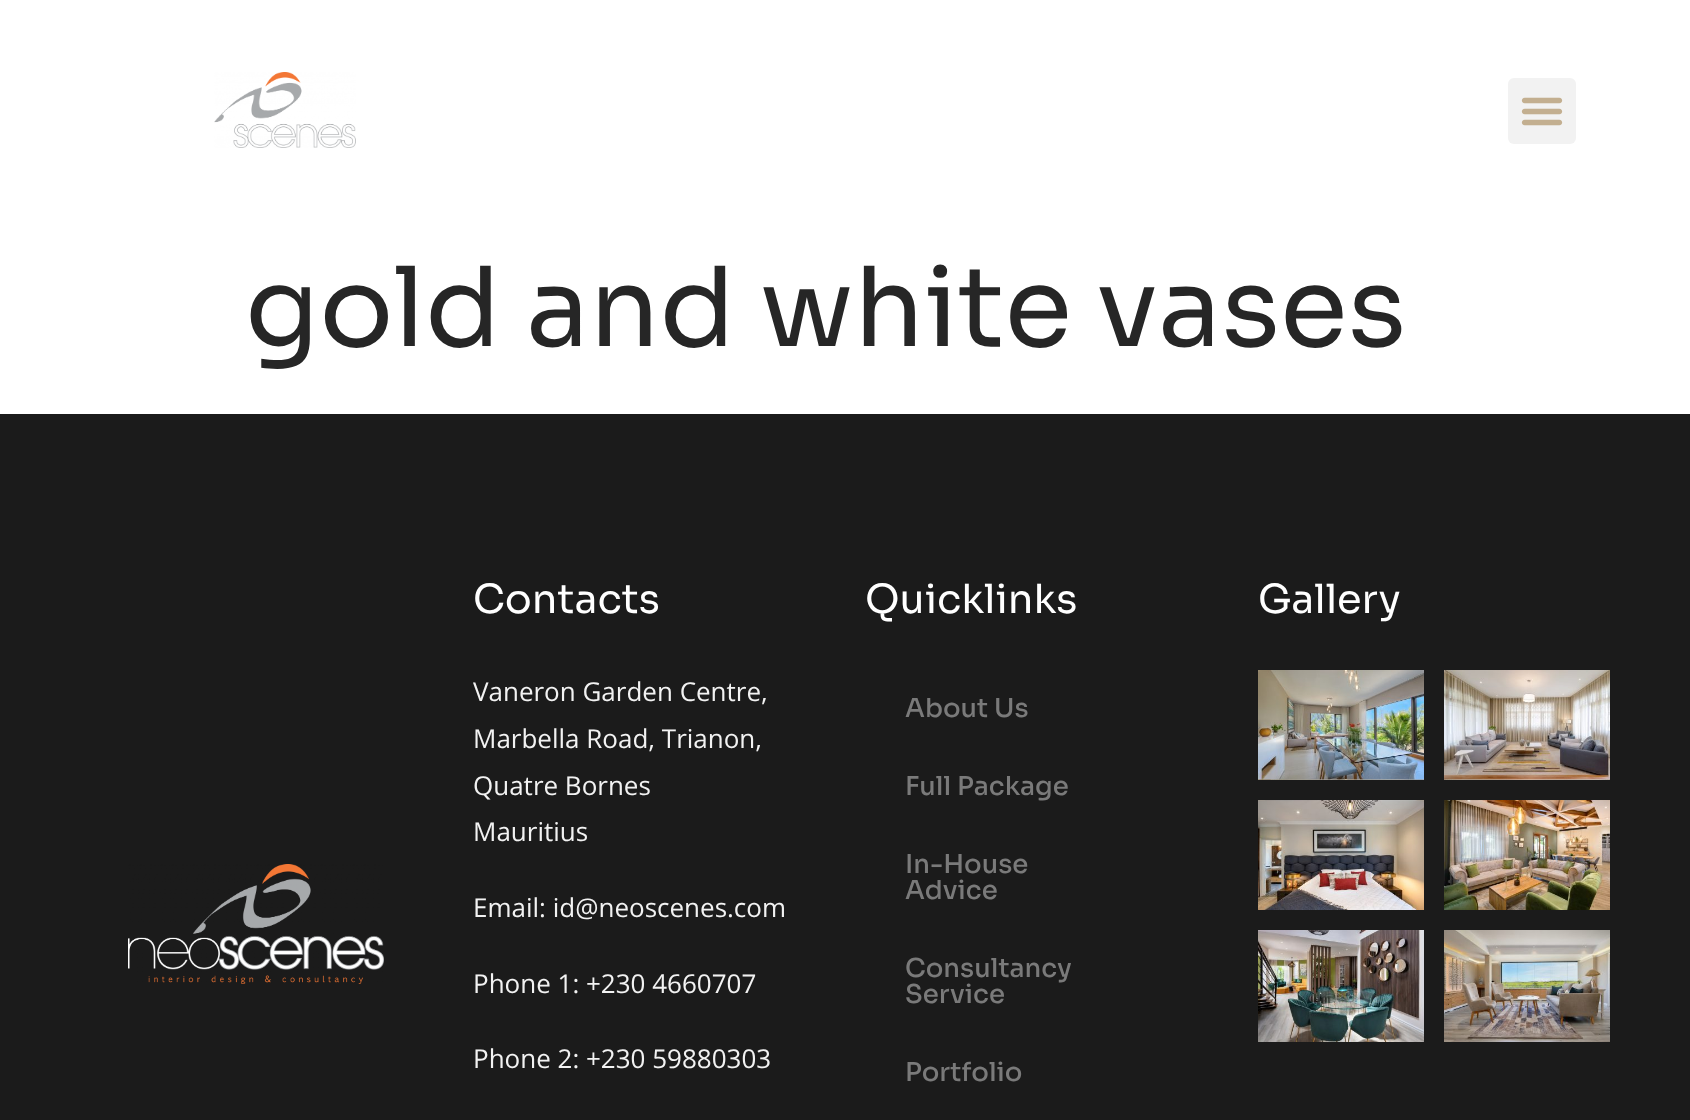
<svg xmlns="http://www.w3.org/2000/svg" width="1690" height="1120">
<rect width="100%" height="100%" fill="#fff"/>
<image x="214" y="72" width="142" height="76" href="media/1.png"/>
<rect x="1508" y="78" width="68" height="66" rx="6" fill="#f2f2f2"/>
<image x="1521" y="97" width="42" height="29" href="media/2.png"/>
<text x="245" y="346" style="font-family:Sora;font-size:110px;fill:#262626">gold and white vases</text>
<rect y="414" width="1690" height="706" fill="#1b1b1b"/>
<text x="473" y="613" style="font-family:Sora;font-size:40px;fill:#fff">Contacts</text>
<text x="473" y="701" style="font-family:Open Sans;font-size:26px;fill:#f2f2f2">Vaneron Garden Centre,</text>
<text x="473" y="748" style="font-family:Open Sans;font-size:26px;fill:#f2f2f2">Marbella Road, Trianon,</text>
<text x="473" y="795" style="font-family:Open Sans;font-size:26px;fill:#f2f2f2">Quatre Bornes</text>
<text x="473" y="841" style="font-family:Open Sans;font-size:26px;fill:#f2f2f2">Mauritius</text>
<text x="473" y="917" style="font-family:Open Sans;font-size:26px;fill:#f2f2f2">Email: id@neoscenes.com</text>
<text x="473" y="993" style="font-family:Open Sans;font-size:26px;fill:#f2f2f2">Phone 1: +230 4660707</text>
<text x="473" y="1068" style="font-family:Open Sans;font-size:26px;fill:#f2f2f2">Phone 2: +230 59880303</text>
<text x="865" y="613" style="font-family:Sora;font-size:40px;fill:#fff">Quicklinks</text>
<text x="905" y="717" style="font-family:Sora;font-size:26px;font-weight:500;fill:#7a7a7a">About Us</text>
<text x="905" y="795" style="font-family:Sora;font-size:26px;font-weight:500;fill:#7a7a7a">Full Package</text>
<text x="905" y="873" style="font-family:Sora;font-size:26px;font-weight:500;fill:#7a7a7a">In-House</text>
<text x="905" y="899" style="font-family:Sora;font-size:26px;font-weight:500;fill:#7a7a7a">Advice</text>
<text x="905" y="977" style="font-family:Sora;font-size:26px;font-weight:500;fill:#7a7a7a">Consultancy</text>
<text x="905" y="1003" style="font-family:Sora;font-size:26px;font-weight:500;fill:#7a7a7a">Service</text>
<text x="905" y="1081" style="font-family:Sora;font-size:26px;font-weight:500;fill:#7a7a7a">Portfolio</text>
<text x="1258" y="613" style="font-family:Sora;font-size:40px;fill:#fff">Gallery</text>
<image x="1258" y="670" width="166" height="110" href="media/3.png"/>
<image x="1444" y="670" width="166" height="110" href="media/4.png"/>
<image x="1258" y="800" width="166" height="110" href="media/5.png"/>
<image x="1444" y="800" width="166" height="110" href="media/6.png"/>
<image x="1258" y="930" width="166" height="112" href="media/7.png"/>
<image x="1444" y="930" width="166" height="112" href="media/8.png"/>
<image x="128" y="864" width="256" height="120" href="media/9.png"/>
</svg>
